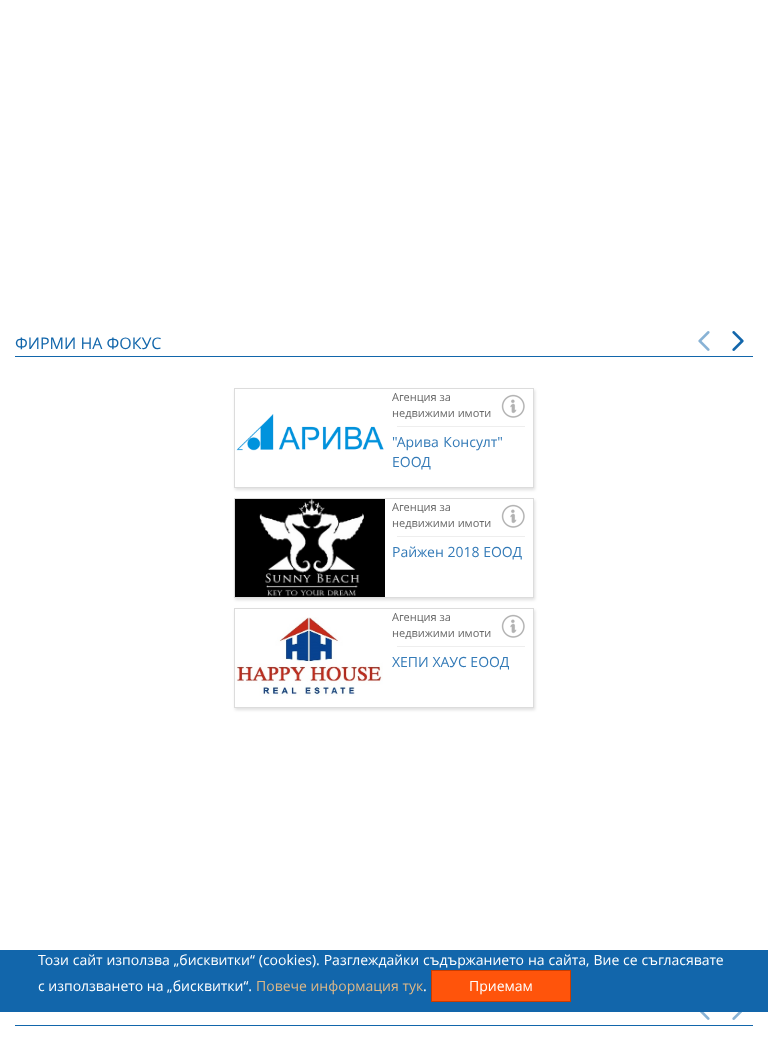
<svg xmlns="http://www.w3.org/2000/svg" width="768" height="1056">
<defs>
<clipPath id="clip1"><path d="M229 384h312v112h-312zm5 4h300v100h-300z" clip-rule="evenodd"/></clipPath>
<clipPath id="clip2"><path d="M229 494h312v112h-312zm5 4h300v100h-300z" clip-rule="evenodd"/></clipPath>
<clipPath id="clip3"><path d="M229 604h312v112h-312zm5 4h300v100h-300z" clip-rule="evenodd"/></clipPath>
</defs>
<rect width="100%" height="100%" fill="#fff"/>
<rect x="15" y="356" width="738" height="1" fill="#1266ab"/>
<text x="15" y="349" style="font-family:Open Sans;font-size:16px;fill:#1266ab">ФИРМИ НА ФОКУС</text>
<image x="698" y="331" width="12" height="20" href="media/1.png"/>
<image x="732" y="331" width="12" height="20" href="media/2.png"/>
<g clip-path="url(#clip1)">
<rect x="235" y="390" width="300" height="100" fill="#0000001f" filter="blur(1.5px)"/>
</g>
<rect x="234.5" y="388.5" width="299" height="99" fill="none" stroke="#dcdcdc"/>
<image x="236" y="414" width="148" height="37" href="media/3.png"/>
<text x="392" y="401" style="font-family:Open Sans;font-size:11px;fill:#666">Агенция за</text>
<text x="392" y="417" style="font-family:Open Sans;font-size:11px;fill:#666">недвижими имоти</text>
<image x="501" y="394" width="24" height="24" href="media/4.png"/>
<rect x="397" y="426" width="128" height="1" fill="#eee"/>
<text x="392" y="447" word-spacing="1" style="font-family:Open Sans;font-size:14px;fill:#337ab7">"Арива Консулт"</text>
<text x="392" y="467" style="font-family:Open Sans;font-size:14px;fill:#337ab7">ЕООД</text>
<g clip-path="url(#clip2)">
<rect x="235" y="500" width="300" height="100" fill="#0000001f" filter="blur(1.5px)"/>
</g>
<rect x="234.5" y="498.5" width="299" height="99" fill="none" stroke="#dcdcdc"/>
<image x="235" y="499" width="150" height="98" href="media/5.png"/>
<text x="392" y="511" style="font-family:Open Sans;font-size:11px;fill:#666">Агенция за</text>
<text x="392" y="527" style="font-family:Open Sans;font-size:11px;fill:#666">недвижими имоти</text>
<image x="501" y="504" width="24" height="24" href="media/4.png"/>
<rect x="397" y="536" width="128" height="1" fill="#eee"/>
<text x="392" y="557" style="font-family:Open Sans;font-size:14px;fill:#337ab7">Райжен 2018 ЕООД</text>
<g clip-path="url(#clip3)">
<rect x="235" y="610" width="300" height="100" fill="#0000001f" filter="blur(1.5px)"/>
</g>
<rect x="234.5" y="608.5" width="299" height="99" fill="none" stroke="#dcdcdc"/>
<image x="235" y="617" width="148" height="79" href="media/6.png"/>
<text x="392" y="621" style="font-family:Open Sans;font-size:11px;fill:#666">Агенция за</text>
<text x="392" y="637" style="font-family:Open Sans;font-size:11px;fill:#666">недвижими имоти</text>
<image x="501" y="614" width="24" height="24" href="media/4.png"/>
<rect x="397" y="646" width="128" height="1" fill="#eee"/>
<text x="392" y="667" style="font-family:Open Sans;font-size:14px;fill:#337ab7">ХЕПИ ХАУС ЕООД</text>
<rect x="15" y="1025" width="738" height="1" fill="#1266ab"/>
<image x="700" y="1012" width="10" height="8" href="media/7.png"/>
<image x="732" y="1012" width="10" height="8" href="media/8.png"/>
<rect y="950" width="768" height="62" fill="#1266ab"/>
<text x="38" y="965" word-spacing="0.25" style="font-family:Open Sans;font-size:14px;fill:#fff">Този сайт използва „бисквитки“ (cookies). Разглеждайки съдържанието на сайта, Вие се съгласявате</text>
<text x="38" y="991" style="font-family:Open Sans;font-size:14px;fill:#fff">с използването на „бисквитки“.</text>
<text x="256" y="991" style="font-family:Open Sans;font-size:14px;fill:#deb887">Повече информация тук</text>
<text x="423" y="991" style="font-family:Open Sans;font-size:14px;fill:#fff">.</text>
<rect x="431.5" y="970.5" width="139" height="31" fill="#ff540b" stroke="#ca3c00"/>
<text x="469" y="991" style="font-family:Open Sans;font-size:14px;fill:#fff">Приемам</text>
</svg>
